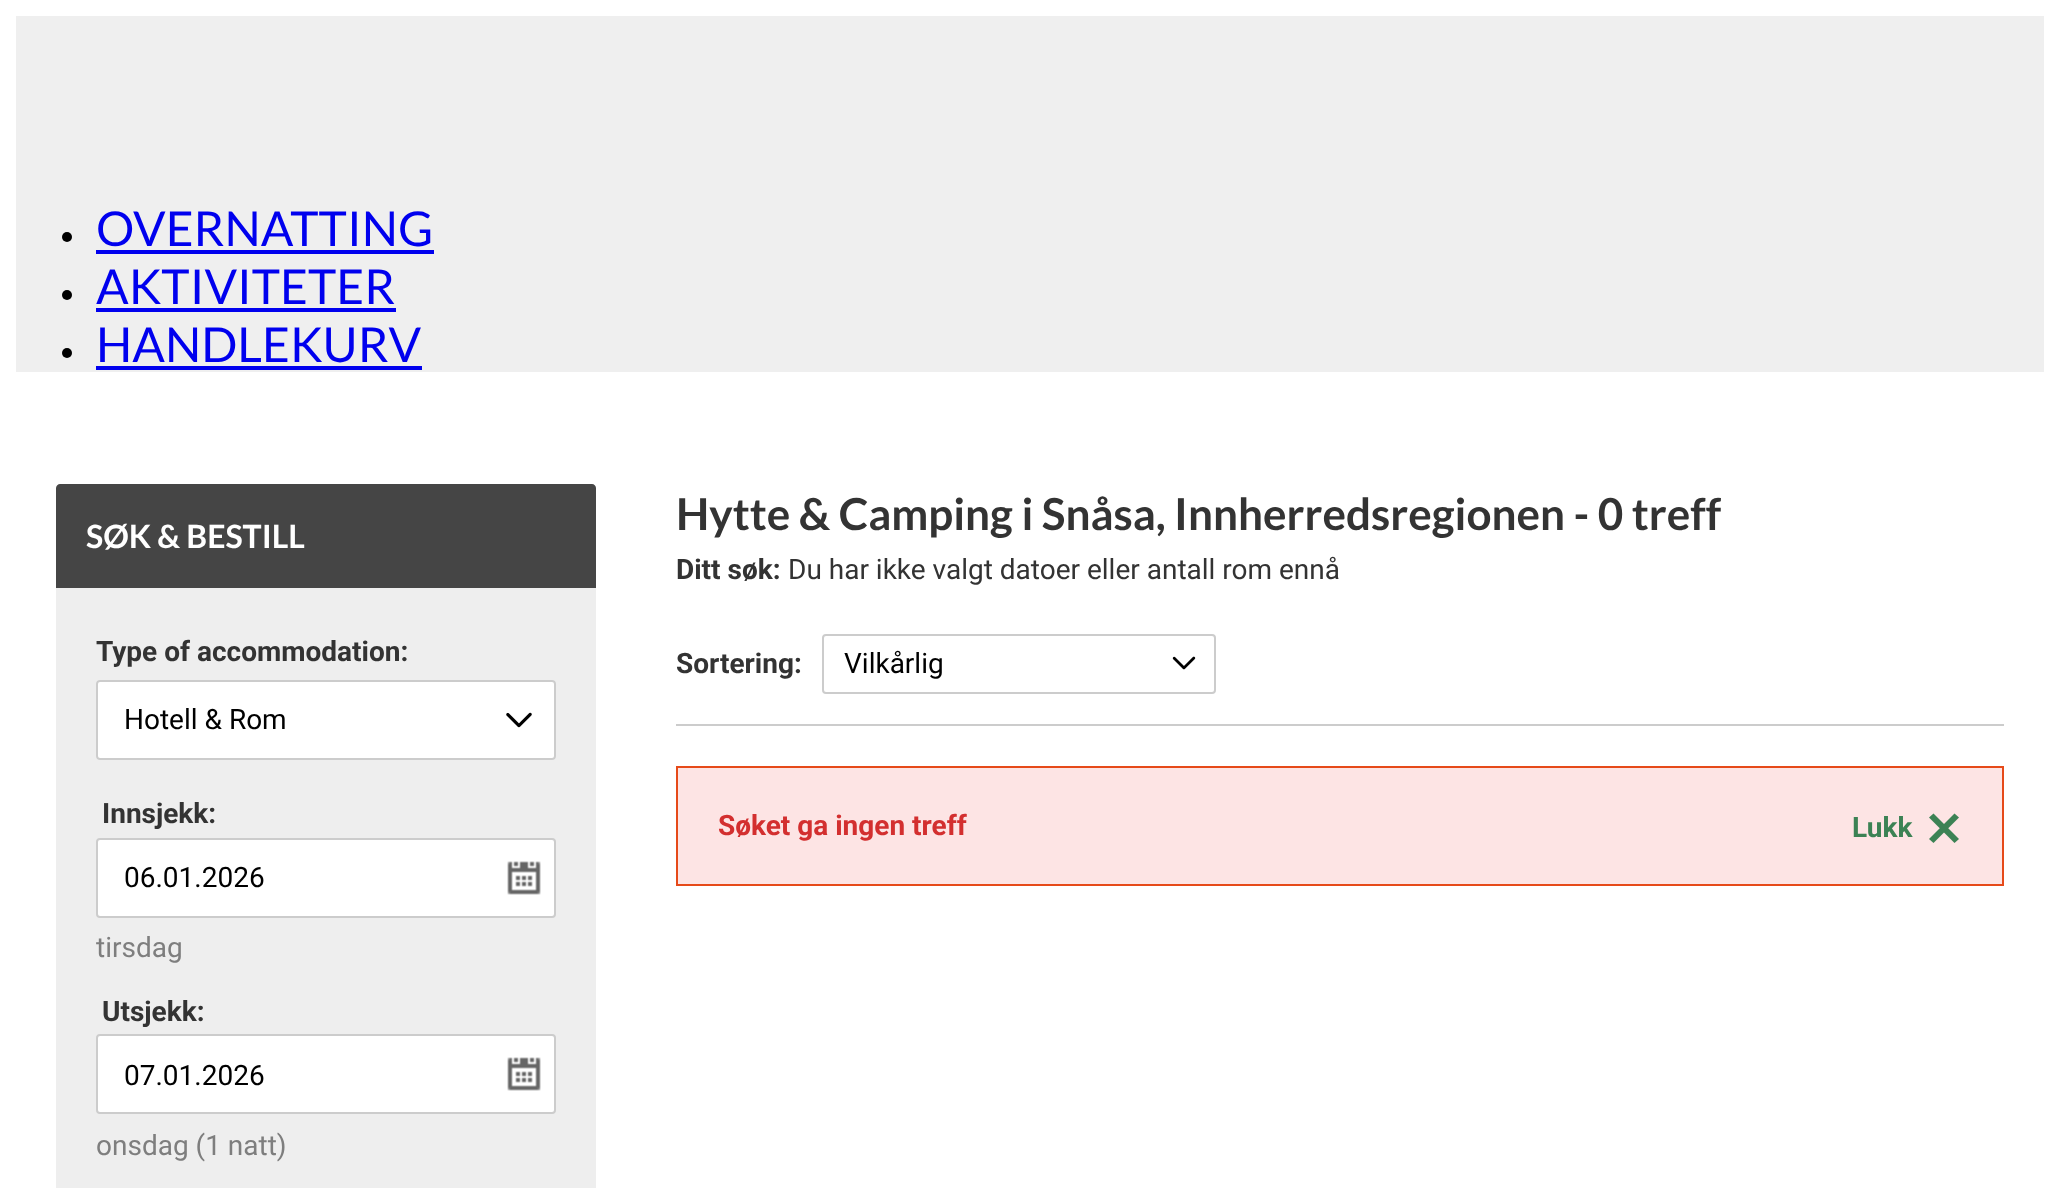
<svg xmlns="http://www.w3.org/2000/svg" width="2059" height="1188">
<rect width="100%" height="100%" fill="#fff"/>
<rect x="16" y="16" width="2028" height="356" fill="#efefef"/>
<circle cx="67" cy="237" r="5" fill="#000"/>
<text x="96" y="246" style="font-family:Lato;font-size:48px;fill:#00e">OVERNATTING</text>
<rect x="96" y="250" width="338" height="4" fill="#00e"/>
<circle cx="67" cy="295" r="5" fill="#000"/>
<text x="96" y="304" style="font-family:Lato;font-size:48px;fill:#00e">AKTIVITETER</text>
<rect x="96" y="308" width="300" height="4" fill="#00e"/>
<circle cx="67" cy="353" r="5" fill="#000"/>
<text x="96" y="362" style="font-family:Lato;font-size:48px;fill:#00e">HANDLEKURV</text>
<rect x="96" y="366" width="326" height="4" fill="#00e"/>
<path d="M60 484h532c2 0 4 2 4 4v100h-540v-100c0-2 2-4 4-4z" fill="#454545"/>
<text x="86" y="548" style="font-family:Lato;font-size:32px;font-weight:bold;fill:#fff">SØK &amp; BESTILL</text>
<rect x="56" y="588" width="540" height="600" fill="#eee"/>
<text x="96" y="661" style="font-family:Roboto;font-size:28px;font-weight:bold;fill:#333">Type of accommodation:</text>
<rect x="96" y="680" width="460" height="80" rx="4" fill="#fff"/>
<image x="506" y="712" width="26" height="16" href="media/1.png"/>
<rect x="97" y="681" width="458" height="78" rx="3" fill="none" stroke="#ccc" stroke-width="2"/>
<text x="124" y="729" style="font-family:Roboto;font-size:28px;fill:#000">Hotell &amp; Rom</text>
<text x="102" y="823" style="font-family:Roboto;font-size:28px;font-weight:bold;fill:#333">Innsjekk:</text>
<rect x="97" y="839" width="458" height="78" rx="3" fill="#fff" stroke="#ccc" stroke-width="2"/>
<text x="124" y="887" style="font-family:Roboto;font-size:28px;fill:#000">06.01.2026</text>
<image x="507" y="861" width="34" height="34" href="media/2.png"/>
<text x="96" y="957" style="font-family:Roboto;font-size:28px;fill:#7e7e7e">tirsdag</text>
<text x="102" y="1021" style="font-family:Roboto;font-size:28px;font-weight:bold;fill:#333">Utsjekk:</text>
<rect x="97" y="1035" width="458" height="78" rx="3" fill="#fff" stroke="#ccc" stroke-width="2"/>
<text x="124" y="1085" style="font-family:Roboto;font-size:28px;fill:#000">07.01.2026</text>
<image x="507" y="1057" width="34" height="34" href="media/2.png"/>
<text x="96" y="1155" style="font-family:Roboto;font-size:28px;fill:#7e7e7e">onsdag (1 natt)</text>
<text x="676" y="530" style="font-family:Lato;font-size:44px;font-weight:bold;fill:#333">Hytte &amp; Camping i Snåsa, Innherredsregionen - 0 treff</text>
<text x="676" y="579" style="font-family:Roboto;font-size:28px;font-weight:bold;fill:#333">Ditt søk:</text>
<text x="788" y="579" style="font-family:Roboto;font-size:28px;fill:#333">Du har ikke valgt datoer eller antall rom ennå</text>
<rect x="676" y="724" width="1328" height="2" fill="#ccc"/>
<text x="676" y="673" style="font-family:Roboto;font-size:28px;font-weight:bold;fill:#333">Sortering:</text>
<image x="1172" y="656" width="24" height="14" href="media/3.png"/>
<rect x="823" y="635" width="392" height="58" rx="3" fill="none" stroke="#ccc" stroke-width="2"/>
<text x="844" y="673" style="font-family:Roboto;font-size:28px;fill:#000">Vilkårlig</text>
<rect x="677" y="767" width="1326" height="118" fill="#fde4e4" stroke="#e64a19" stroke-width="2"/>
<text x="718" y="835" style="font-family:Roboto;font-size:28px;font-weight:bold;fill:#d32f2f">Søket ga ingen treff</text>
<path d="M1933.5 813.5l25.5 25.5l-4.5 4l-25.5-25.5z" fill="#3c8254"/>
<text x="1852" y="837" style="font-family:Roboto;font-size:28px;font-weight:bold;fill:#3c8254">Lukk</text>
<path d="M1929 839l25.5-25.5l4.5 4l-25.5 25.5z" fill="#3c8254"/>
</svg>
